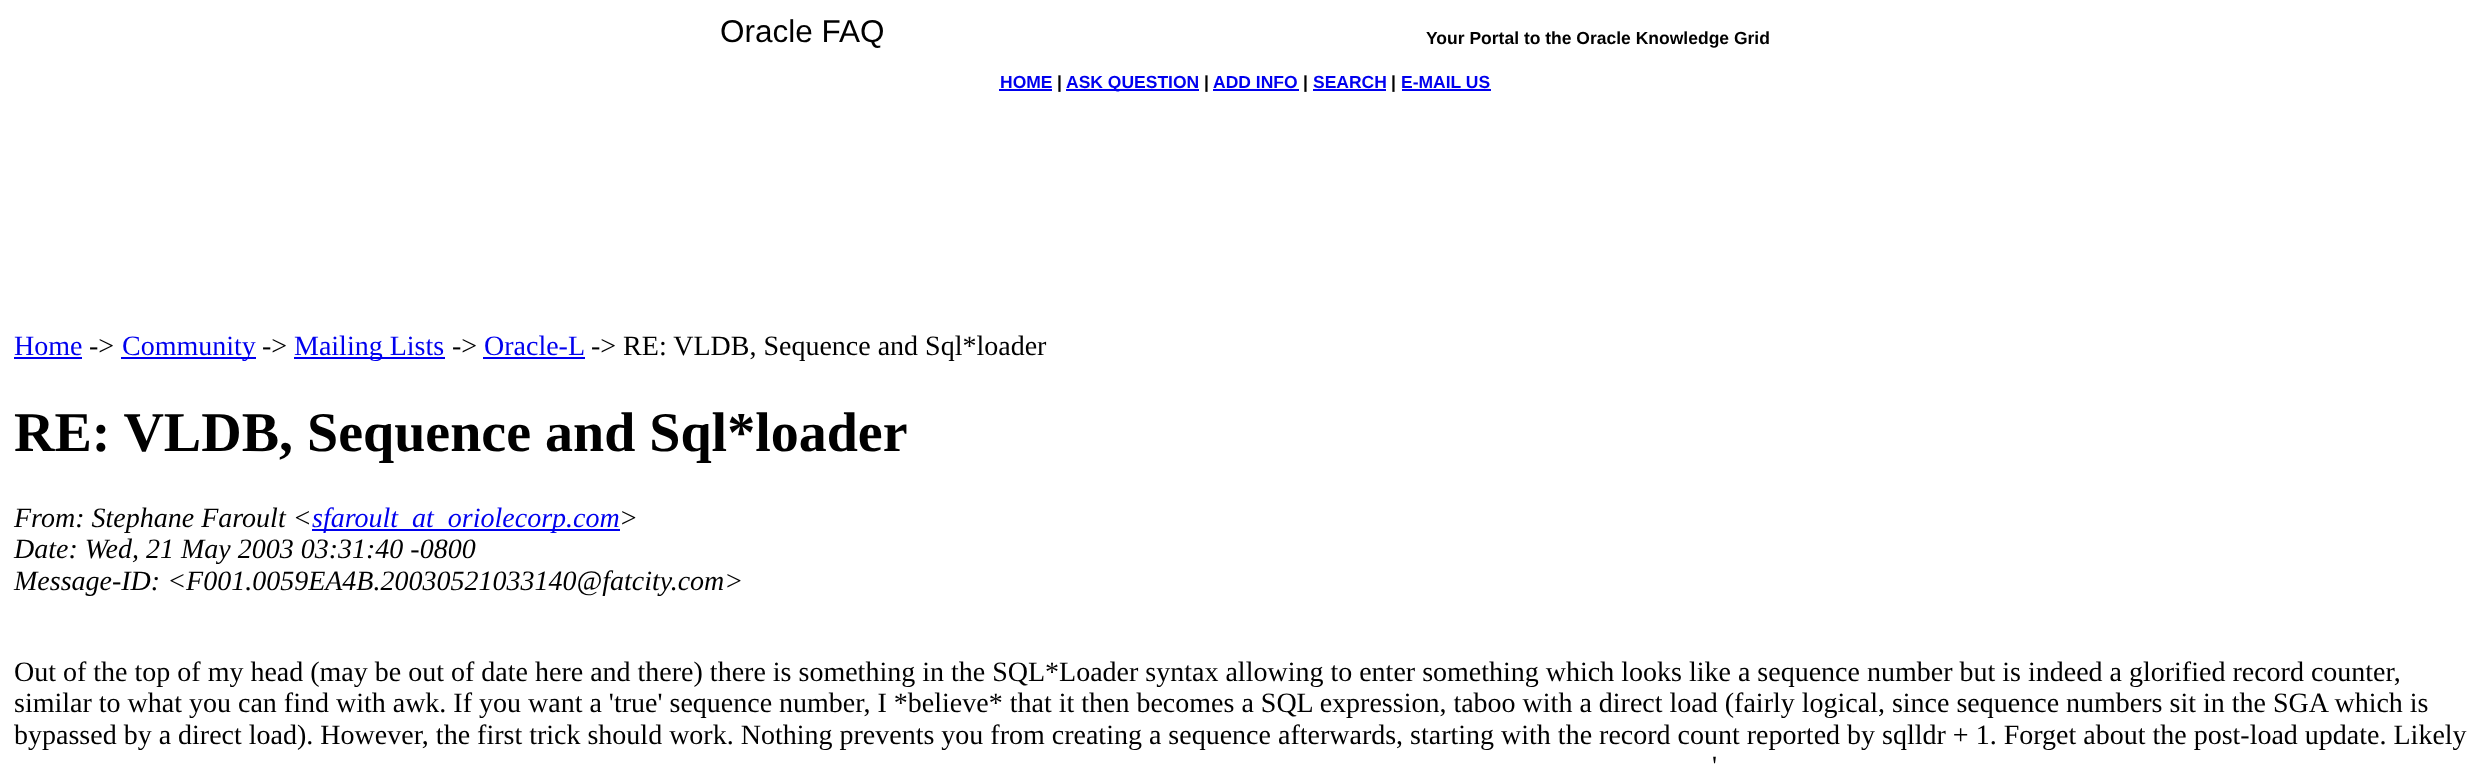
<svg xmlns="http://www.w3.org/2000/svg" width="2489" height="766">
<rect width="100%" height="100%" fill="#fff"/>
<text x="720" y="42" style="font-family:Liberation Sans;font-size:31.5px;fill:#000">Oracle FAQ</text>
<text x="1426" y="44" style="font-family:Liberation Sans;font-size:17.5px;font-weight:bold;fill:#000">Your Portal to the Oracle Knowledge Grid</text>
<text x="1000" y="88" style="font-family:Liberation Sans;font-size:17.5px;font-weight:bold;fill:#00e">HOME</text>
<rect x="999" y="89" width="53" height="2" fill="#00e"/>
<text x="1057" y="88" style="font-family:Liberation Sans;font-size:17.5px;font-weight:bold;fill:#000">|</text>
<rect x="1066" y="89" width="133" height="2" fill="#00e"/>
<text x="1066" y="88" style="font-family:Liberation Sans;font-size:17.5px;font-weight:bold;fill:#00e">ASK QUESTION</text>
<text x="1204" y="88" style="font-family:Liberation Sans;font-size:17.5px;font-weight:bold;fill:#000">|</text>
<text x="1213" y="88" style="font-family:Liberation Sans;font-size:17.5px;font-weight:bold;fill:#00e">ADD INFO</text>
<rect x="1213" y="89" width="86" height="2" fill="#00e"/>
<text x="1303" y="88" style="font-family:Liberation Sans;font-size:17.5px;font-weight:bold;fill:#000">|</text>
<text x="1313" y="88" style="font-family:Liberation Sans;font-size:17.5px;font-weight:bold;fill:#00e">SEARCH</text>
<rect x="1313" y="89" width="73" height="2" fill="#00e"/>
<text x="1391" y="88" style="font-family:Liberation Sans;font-size:17.5px;font-weight:bold;fill:#000">|</text>
<text x="1401" y="88" style="font-family:Liberation Sans;font-size:17.5px;font-weight:bold;fill:#00e">E-MAIL US</text>
<rect x="1402" y="89" width="89" height="2" fill="#00e"/>
<text x="14" y="355" style="font-family:Liberation Serif;font-size:28px;fill:#00e">Home</text>
<rect x="14" y="357" width="68" height="2" fill="#00e"/>
<text x="89" y="355" style="font-family:Liberation Serif;font-size:28px;fill:#000">-&gt;</text>
<rect x="121" y="357" width="135" height="2" fill="#00e"/>
<text x="122" y="355" style="font-family:Liberation Serif;font-size:28px;fill:#00e">Community</text>
<text x="262" y="355" style="font-family:Liberation Serif;font-size:28px;fill:#000">-&gt;</text>
<rect x="294" y="357" width="151" height="2" fill="#00e"/>
<text x="294" y="355" style="font-family:Liberation Serif;font-size:28px;fill:#00e">Mailing Lists</text>
<text x="452" y="355" style="font-family:Liberation Serif;font-size:28px;fill:#000">-&gt;</text>
<text x="484" y="355" style="font-family:Liberation Serif;font-size:28px;fill:#00e">Oracle-L</text>
<rect x="483" y="357" width="102" height="2" fill="#00e"/>
<text x="591" y="355" style="font-family:Liberation Serif;font-size:28px;fill:#000">-&gt; RE: VLDB, Sequence and Sql*loader</text>
<text x="14" y="451" style="font-family:Liberation Serif;font-size:56px;font-weight:bold;fill:#000">RE: VLDB, Sequence and Sql*loader</text>
<text x="14" y="527" style="font-family:Liberation Serif;font-size:28px;font-style:italic;fill:#000">From: Stephane Faroult &lt;</text>
<rect x="312" y="529" width="308" height="2" fill="#00e"/>
<text x="312" y="527" style="font-family:Liberation Serif;font-size:28px;font-style:italic;fill:#00e">sfaroult_at_oriolecorp.com</text>
<text x="619" y="527" style="font-family:Liberation Serif;font-size:28px;font-style:italic;fill:#000">&gt;</text>
<text x="14" y="558" style="font-family:Liberation Serif;font-size:28px;font-style:italic;fill:#000">Date: Wed, 21 May 2003 03:31:40 -0800</text>
<text x="14" y="590" style="font-family:Liberation Serif;font-size:28px;font-style:italic;fill:#000">Message-ID: &lt;F001.0059EA4B.20030521033140@fatcity.com&gt;</text>
<text x="14" y="681" style="font-family:Liberation Serif;font-size:28px;fill:#000">Out of the top of my head (may be out of date here and there) there is something in the SQL*Loader syntax allowing to enter something which looks like a sequence number but is indeed a glorified record counter,</text>
<text x="14" y="712" style="font-family:Liberation Serif;font-size:28px;fill:#000">similar to what you can find with awk. If you want a 'true' sequence number, I *believe* that it then becomes a SQL expression, taboo with a direct load (fairly logical, since sequence numbers sit in the SGA which is</text>
<text x="14" y="744" style="font-family:Liberation Serif;font-size:28px;fill:#000">bypassed by a direct load). However, the first trick should work. Nothing prevents you from creating a sequence afterwards, starting with the record count reported by sqlldr + 1. Forget about the post-load update. Likely</text>
<text x="1712" y="775" style="font-family:Liberation Serif;font-size:28px;fill:#000">'</text>
</svg>
